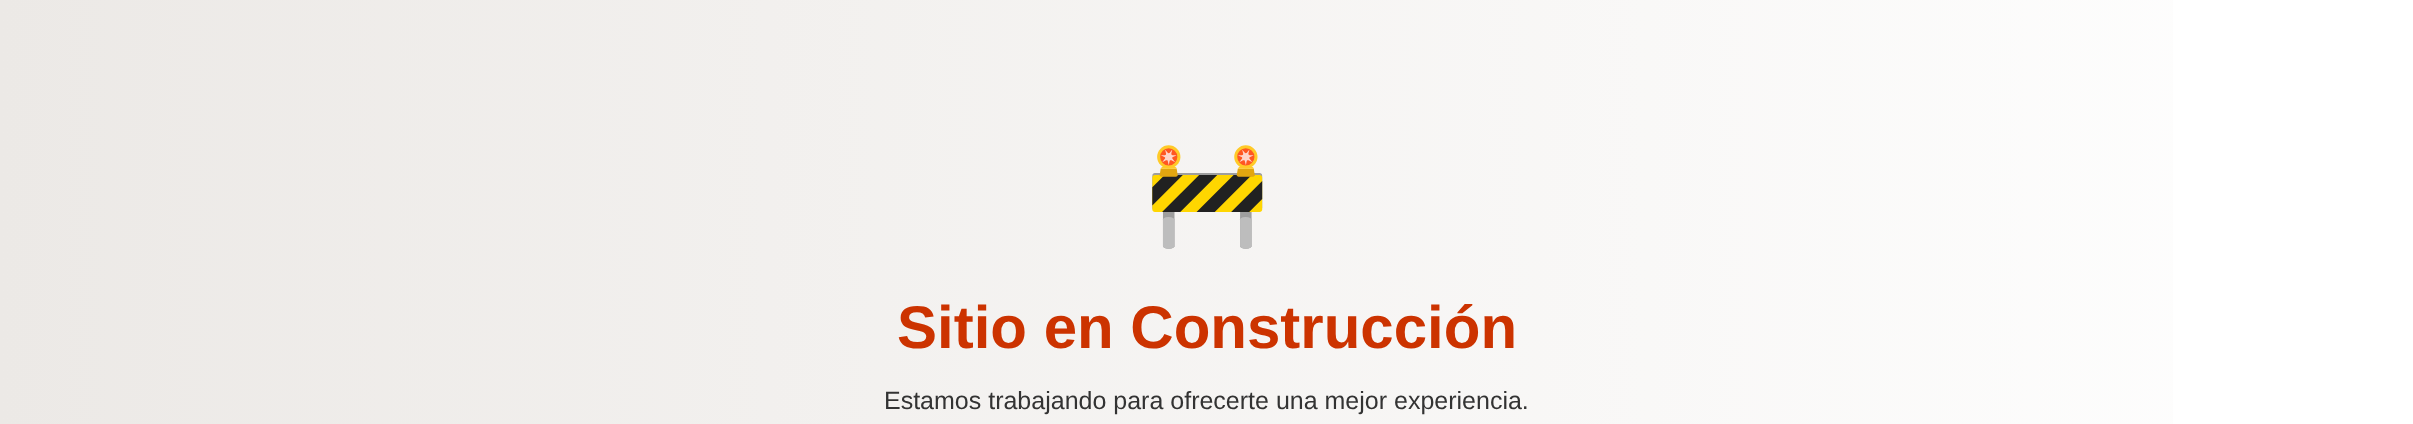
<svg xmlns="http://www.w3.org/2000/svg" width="2413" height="424">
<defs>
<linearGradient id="g1" gradientUnits="userSpaceOnUse" x1="0" y1="331" x2="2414" y2="331"><stop offset="0" stop-color="#ece9e6"/><stop offset="1" stop-color="#fff"/></linearGradient>
</defs>
<rect width="100%" height="100%" fill="#fff"/>
<rect width="2173" height="424" fill="url(#g1)"/>
<text x="1145" y="228" style="font-family:Noto Color Emoji;font-size:100px;fill:#f39c12">🚧</text>
<text x="897" y="348" style="font-family:Liberation Sans;font-size:60px;font-weight:bold;fill:#c30">Sitio en Construcción</text>
<text x="884" y="409" style="font-family:Liberation Sans;font-size:25px;fill:#333">Estamos trabajando para ofrecerte una mejor experiencia.</text>
</svg>
